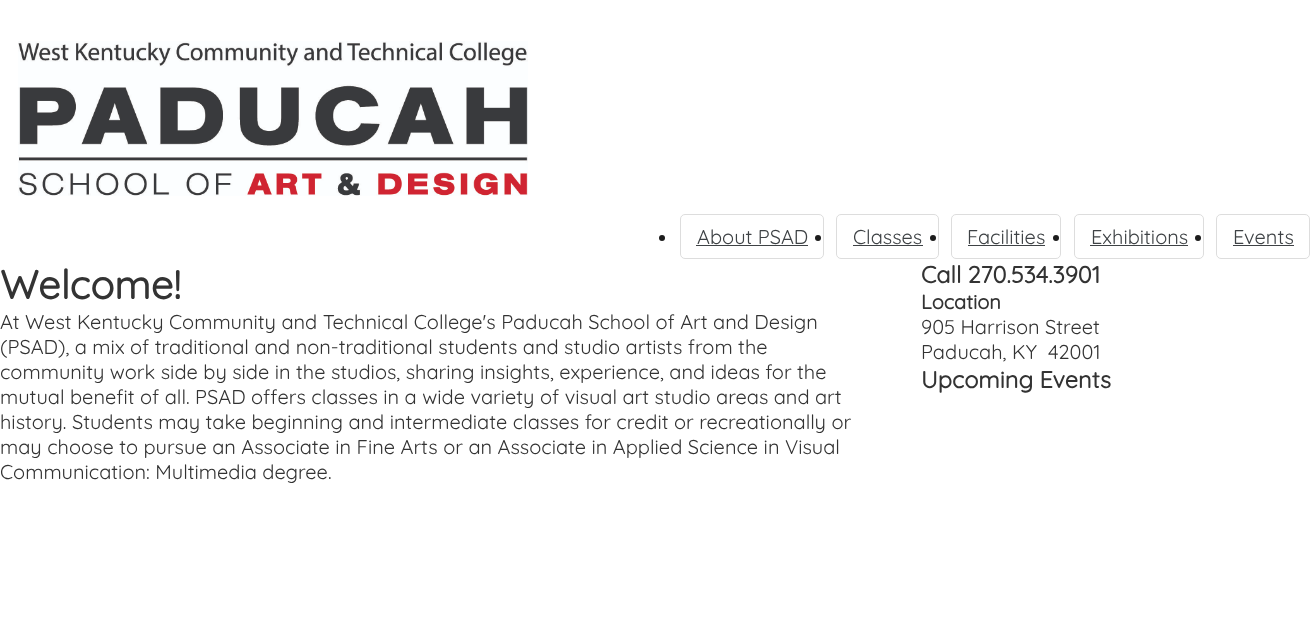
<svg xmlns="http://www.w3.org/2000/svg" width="1316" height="621">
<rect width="100%" height="100%" fill="#fff"/>
<image x="18" y="41" width="510" height="155" href="media/1.png"/>
<circle cx="662" cy="238" r="3" fill="#1c1c1c"/>
<circle cx="818" cy="238" r="3" fill="#1c1c1c"/>
<rect x="680.5" y="214.5" width="143" height="44" rx="4.5" fill="none" stroke="#ddd"/>
<text x="697" y="244" style="font-family:Quicksand;font-size:20px;font-weight:300;fill:#3e4245">About PSAD</text>
<rect x="696" y="245" width="112" height="1" fill="#3e4245"/>
<circle cx="933" cy="238" r="3" fill="#1c1c1c"/>
<rect x="836.5" y="214.5" width="102" height="44" rx="4.5" fill="none" stroke="#ddd"/>
<text x="853" y="244" style="font-family:Quicksand;font-size:20px;font-weight:300;fill:#3e4245">Classes</text>
<rect x="853" y="245" width="70" height="1" fill="#3e4245"/>
<circle cx="1056" cy="238" r="3" fill="#1c1c1c"/>
<rect x="951.5" y="214.5" width="109" height="44" rx="4.5" fill="none" stroke="#ddd"/>
<text x="967" y="244" style="font-family:Quicksand;font-size:20px;font-weight:300;fill:#3e4245">Facilities</text>
<rect x="968" y="245" width="77" height="1" fill="#3e4245"/>
<circle cx="1198" cy="238" r="3" fill="#1c1c1c"/>
<rect x="1074.5" y="214.5" width="129" height="44" rx="4.5" fill="none" stroke="#ddd"/>
<text x="1091" y="244" style="font-family:Quicksand;font-size:20px;font-weight:300;fill:#3e4245">Exhibitions</text>
<rect x="1090" y="245" width="98" height="1" fill="#3e4245"/>
<rect x="1216.5" y="214.5" width="93" height="44" rx="4.5" fill="none" stroke="#ddd"/>
<text x="1233" y="244" style="font-family:Quicksand;font-size:20px;font-weight:300;fill:#3e4245">Events</text>
<rect x="1233" y="245" width="61" height="1" fill="#3e4245"/>
<text x="0" y="299" style="font-family:Quicksand;font-size:40px;font-weight:bold;fill:#333">Welcome!</text>
<text x="0" y="329" style="font-family:Quicksand;font-size:20px;font-weight:300;fill:#333">At West Kentucky Community and Technical College's Paducah School of Art and Design</text>
<text x="0" y="354" style="font-family:Quicksand;font-size:20px;font-weight:300;fill:#333">(PSAD), a mix of traditional and non-traditional students and studio artists from the</text>
<text x="0" y="379" style="font-family:Quicksand;font-size:20px;font-weight:300;fill:#333">community work side by side in the studios, sharing insights, experience, and ideas for the</text>
<text x="0" y="404" style="font-family:Quicksand;font-size:20px;font-weight:300;fill:#333">mutual benefit of all. PSAD offers classes in a wide variety of visual art studio areas and art</text>
<text x="0" y="429" style="font-family:Quicksand;font-size:20px;font-weight:300;fill:#333">history. Students may take beginning and intermediate classes for credit or recreationally or</text>
<text x="0" y="454" style="font-family:Quicksand;font-size:20px;font-weight:300;fill:#333">may choose to pursue an Associate in Fine Arts or an Associate in Applied Science in Visual</text>
<text x="0" y="479" style="font-family:Quicksand;font-size:20px;font-weight:300;fill:#333">Communication: Multimedia degree.</text>
<text x="921" y="283" style="font-family:Quicksand;font-size:23.5px;font-weight:bold;fill:#333">Call 270.534.3901</text>
<text x="921" y="309" style="font-family:Quicksand;font-size:20px;font-weight:bold;fill:#333">Location</text>
<text x="921" y="334" style="font-family:Quicksand;font-size:20px;font-weight:300;fill:#333">905 Harrison Street</text>
<text x="921" y="359" style="font-family:Quicksand;font-size:20px;font-weight:300;fill:#333" xml:space="preserve">Paducah, KY  42001</text>
<text x="921" y="388" style="font-family:Quicksand;font-size:23.5px;font-weight:bold;fill:#333">Upcoming Events</text>
</svg>
